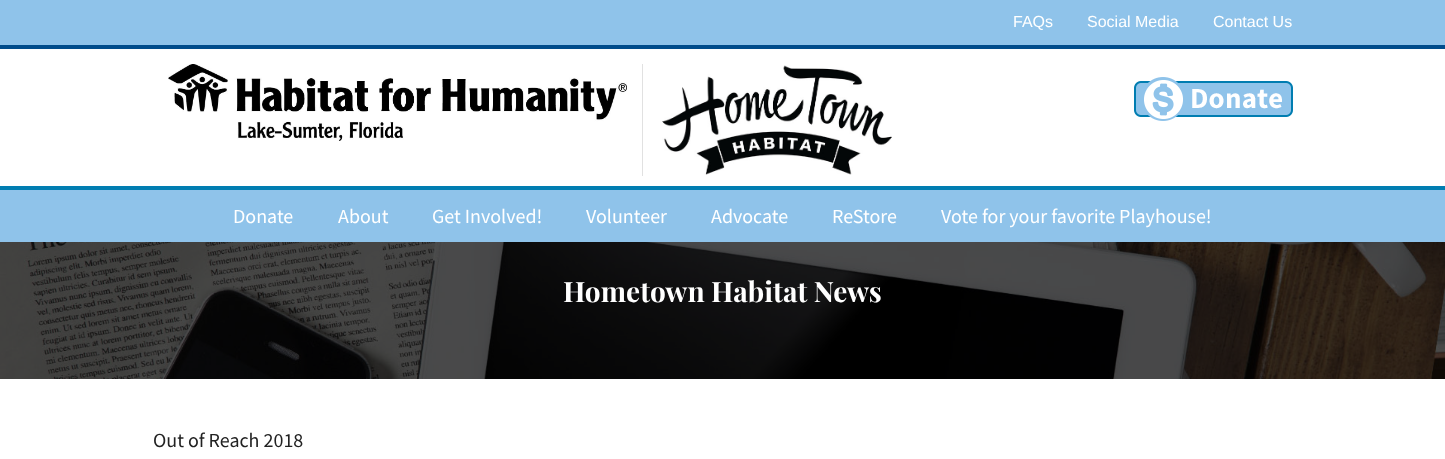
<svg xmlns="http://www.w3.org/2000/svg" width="1445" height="459">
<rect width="100%" height="100%" fill="#fff"/>
<rect width="1445" height="45" fill="#8fc3ea"/>
<rect y="45" width="1445" height="4" fill="#004c8b"/>
<text x="1013" y="27" style="font-family:Liberation Sans;font-size:16px;fill:#fff">FAQs</text>
<text x="1087" y="27" style="font-family:Liberation Sans;font-size:16px;fill:#fff">Social Media</text>
<text x="1213" y="27" style="font-family:Liberation Sans;font-size:16px;fill:#fff">Contact Us</text>
<image x="168" y="64" width="459" height="77" href="media/1.png"/>
<rect x="642" y="64" width="1" height="112" fill="#e1e1e1"/>
<image x="662" y="65" width="230" height="110" href="media/2.png"/>
<image x="1134" y="77" width="159" height="44" href="media/3.png"/>
<rect y="190" width="1445" height="52" fill="#8fc3ea"/>
<rect y="186" width="1445" height="4" fill="#007db1"/>
<text x="233" y="223" style="font-family:Source Sans Pro;font-size:20px;fill:#fff">Donate</text>
<text x="338" y="223" style="font-family:Source Sans Pro;font-size:20px;fill:#fff">About</text>
<text x="432" y="223" style="font-family:Source Sans Pro;font-size:20px;fill:#fff">Get Involved!</text>
<text x="586" y="223" style="font-family:Source Sans Pro;font-size:20px;fill:#fff">Volunteer</text>
<text x="711" y="223" style="font-family:Source Sans Pro;font-size:20px;fill:#fff">Advocate</text>
<text x="832" y="223" style="font-family:Source Sans Pro;font-size:20px;fill:#fff">ReStore</text>
<text x="941" y="223" style="font-family:Source Sans Pro;font-size:20px;fill:#fff">Vote for your favorite Playhouse!</text>
<image x="0" y="242" width="1445" height="137" href="media/4.png"/>
<text x="563" y="302" style="font-family:Playfair Display;font-size:28px;font-weight:bold;fill:#fff">Hometown Habitat News</text>
<text x="153" y="447" style="font-family:Source Sans Pro;font-size:20px;fill:#222">Out of Reach 2018</text>
</svg>
